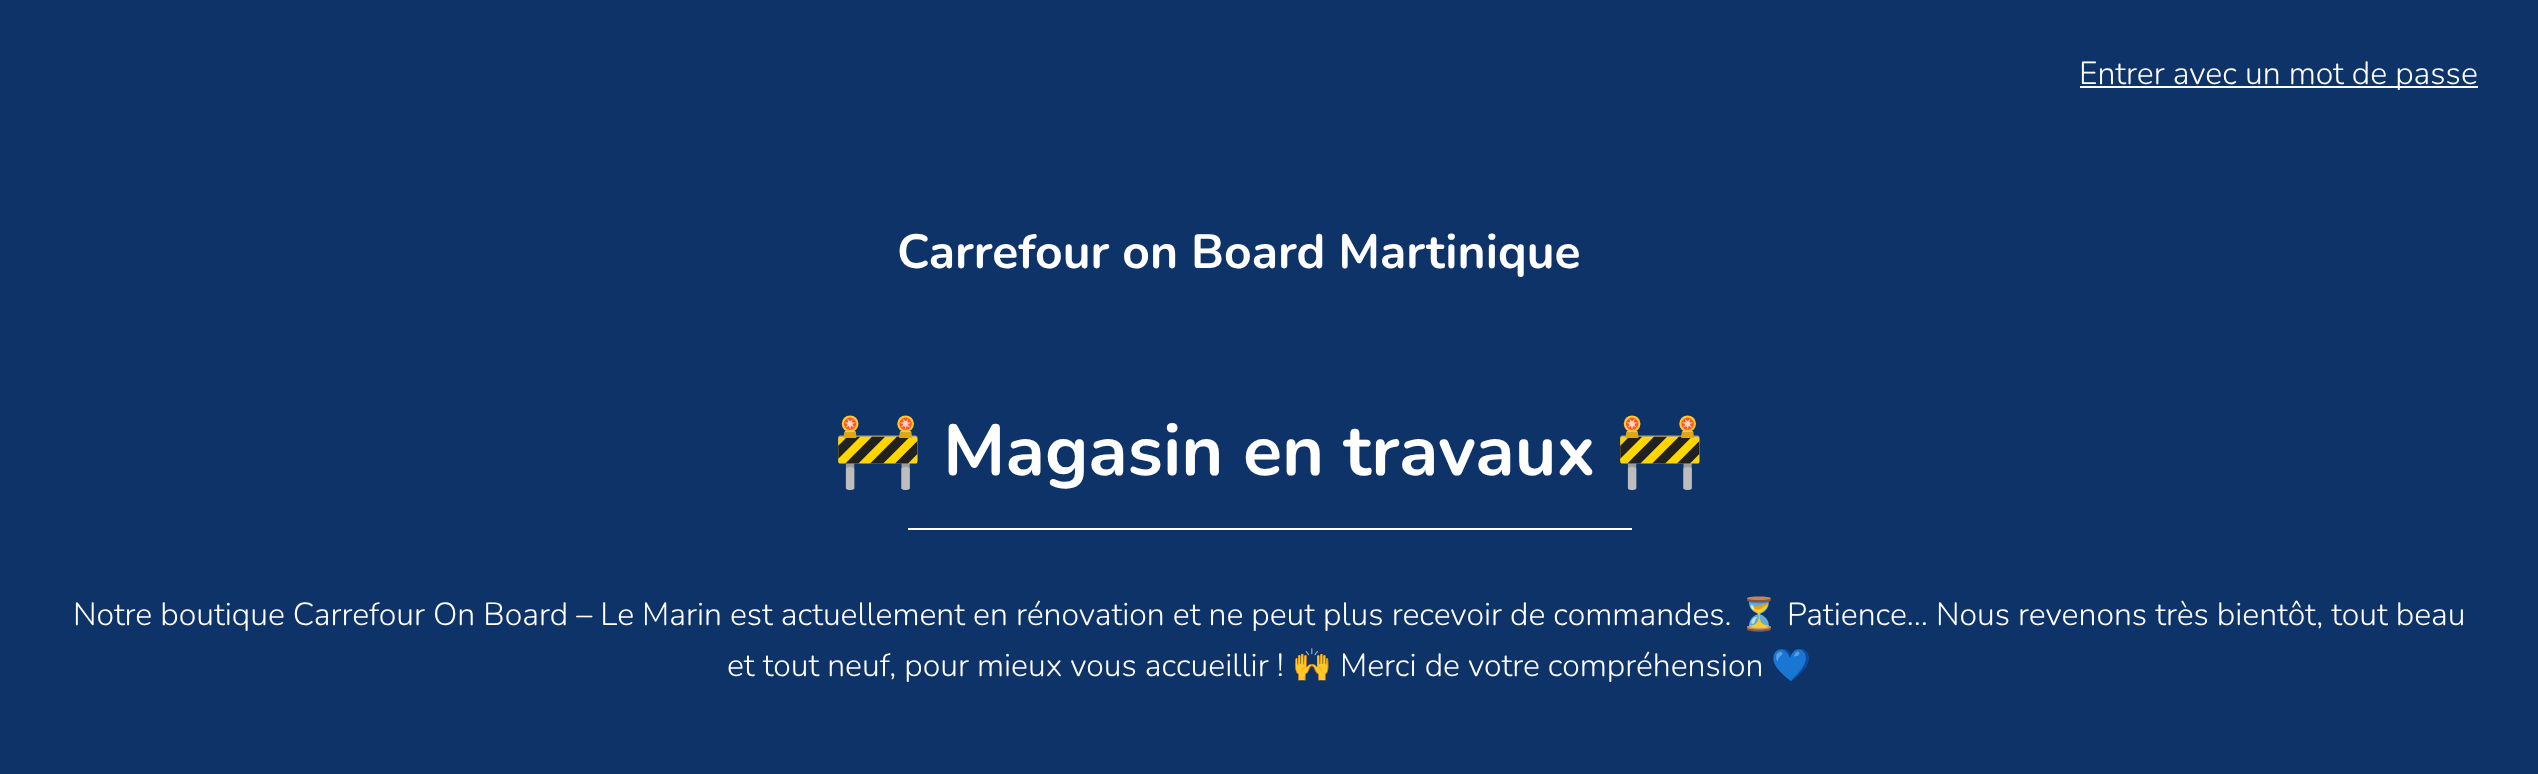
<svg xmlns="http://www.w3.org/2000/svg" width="2538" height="774">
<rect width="100%" height="100%" fill="#0e3368"/>
<rect x="2080" y="86" width="398" height="2" fill="#fff"/>
<text x="2079" y="84" style="font-family:Nunito;font-size:32px;font-weight:300;fill:#fff">Entrer avec un mot de passe</text>
<text x="897" y="268" style="font-family:Nunito;font-size:48px;font-weight:bold;fill:#fff">Carrefour on Board Martinique</text>
<text x="833" y="475" style="font-family:Noto Color Emoji;font-size:72px;font-weight:bold;fill:#fff">🚧</text>
<text x="943" y="475" style="font-family:Nunito;font-size:72px;font-weight:bold;fill:#fff">Magasin en travaux</text>
<text x="1615" y="475" style="font-family:Noto Color Emoji;font-size:72px;font-weight:bold;fill:#fff">🚧</text>
<rect x="908" y="528" width="724" height="2" fill="#fff"/>
<text x="73" y="625" style="font-family:Nunito;font-size:32px;font-weight:300;fill:#fff">Notre boutique Carrefour On Board – Le Marin est actuellement en rénovation et ne peut plus recevoir de commandes.</text>
<text x="1739" y="625" style="font-family:Noto Color Emoji;font-size:32px;fill:#fff">⏳</text>
<text x="1787" y="625" style="font-family:Nunito;font-size:32px;font-weight:300;fill:#fff">Patience… Nous revenons très bientôt, tout beau</text>
<text x="727" y="676" style="font-family:Nunito;font-size:32px;font-weight:300;fill:#fff">et tout neuf, pour mieux vous accueillir !</text>
<text x="1292" y="676" style="font-family:Noto Color Emoji;font-size:32px;fill:#fff">🙌</text>
<text x="1340" y="676" style="font-family:Nunito;font-size:32px;font-weight:300;fill:#fff">Merci de votre compréhension</text>
<text x="1771" y="676" style="font-family:Noto Color Emoji;font-size:32px;fill:#fff">💙</text>
</svg>
